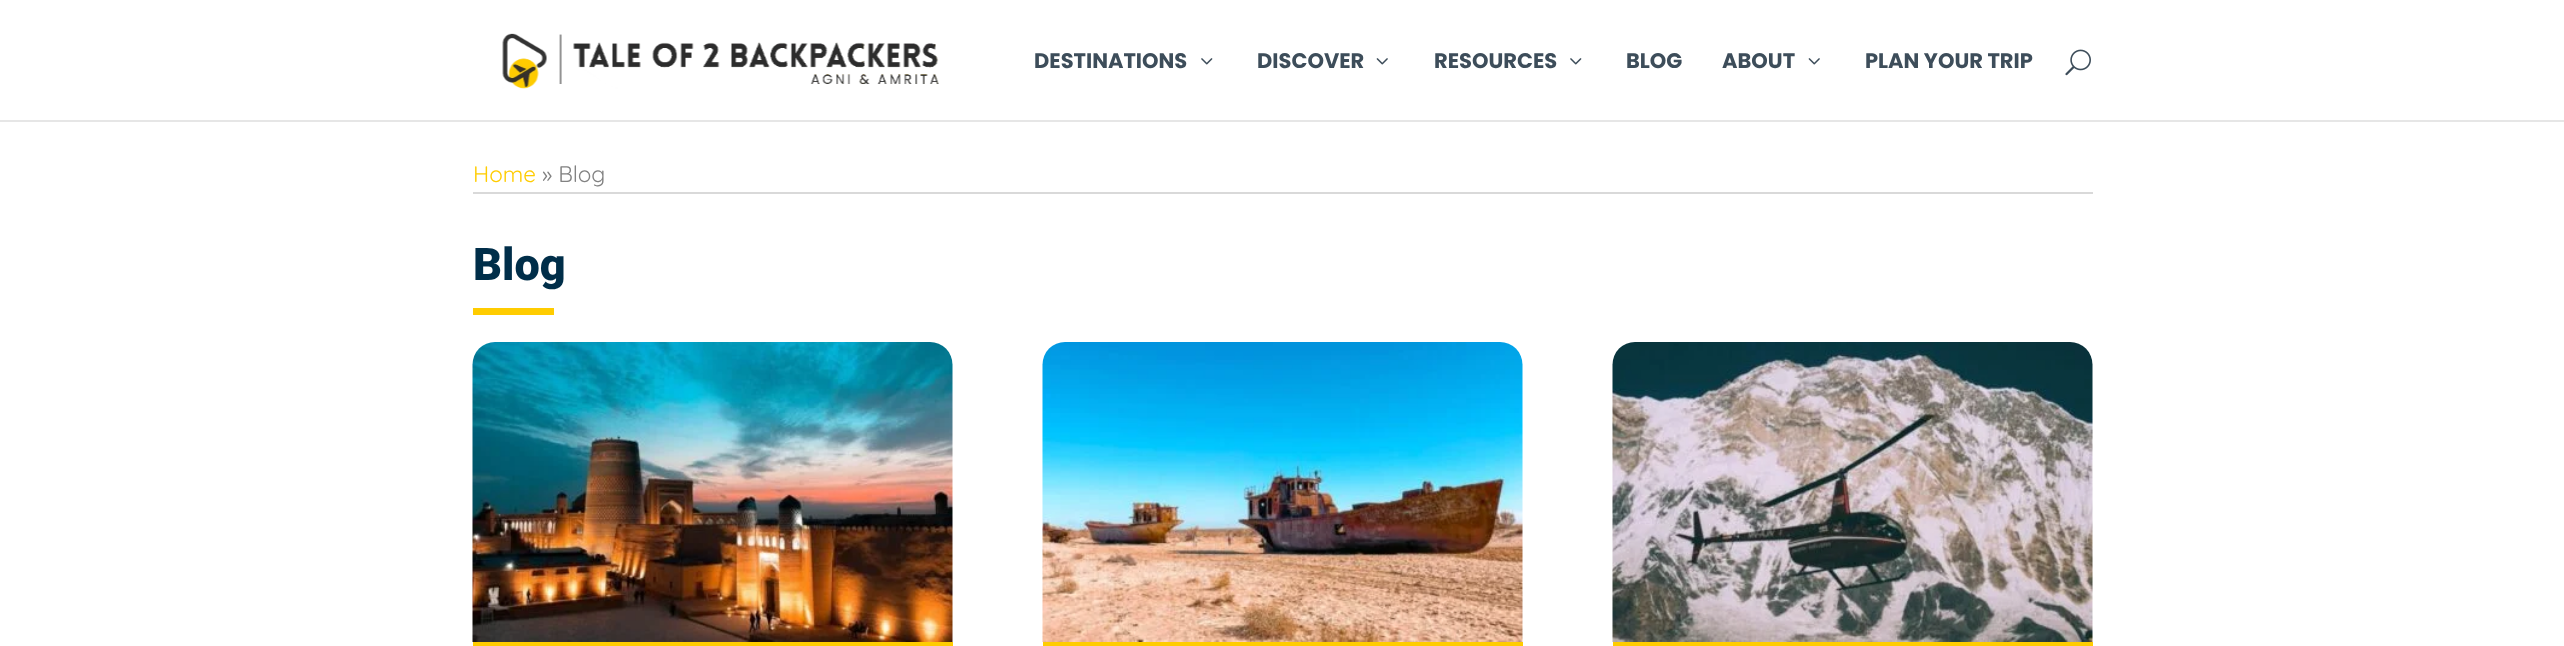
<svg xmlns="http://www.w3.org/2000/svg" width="2564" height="646">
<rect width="100%" height="100%" fill="#fff"/>
<rect y="120" width="2564" height="2" fill="#e6e6e6"/>
<image x="502" y="33" width="437" height="56" href="media/1.png"/>
<text x="1034" y="68" style="font-family:Poppins;font-size:21px;font-weight:bold;fill:#3d4d5a">DESTINATIONS</text>
<image x="1201" y="58" width="12" height="7" href="media/2.png"/>
<text x="1257" y="68" style="font-family:Poppins;font-size:21px;font-weight:bold;fill:#3d4d5a">DISCOVER</text>
<image x="1376" y="58" width="12" height="7" href="media/3.png"/>
<text x="1434" y="68" style="font-family:Poppins;font-size:21px;font-weight:bold;fill:#3d4d5a">RESOURCES</text>
<image x="1570" y="58" width="12" height="7" href="media/2.png"/>
<text x="1626" y="68" style="font-family:Poppins;font-size:21px;font-weight:bold;fill:#3d4d5a">BLOG</text>
<text x="1722" y="68" style="font-family:Poppins;font-size:21px;font-weight:bold;fill:#3d4d5a">ABOUT</text>
<image x="1808" y="58" width="12" height="7" href="media/3.png"/>
<text x="1865" y="68" style="font-family:Poppins;font-size:21px;font-weight:bold;fill:#3d4d5a">PLAN YOUR TRIP</text>
<image x="2065" y="49" width="26" height="27" href="media/4.png"/>
<rect x="473" y="192" width="1620" height="2" fill="#d9d9d9"/>
<text x="473" y="182" style="font-family:Quicksand;font-size:22.5px;fill:#fc0">Home</text>
<text x="542" y="182" style="font-family:Quicksand;font-size:22.5px;fill:#828282">» Blog</text>
<text x="473" y="280" style="font-family:Roboto;font-size:45px;font-weight:900;fill:#002e49">Blog</text>
<rect x="473" y="308" width="81" height="7" fill="#fc0"/>
<rect x="473" y="642" width="480" height="4" fill="#fc0"/>
<image x="472" y="342" width="481" height="300" href="media/5.png"/>
<rect x="1043" y="642" width="480" height="4" fill="#fc0"/>
<image x="1042" y="342" width="481" height="300" href="media/6.png"/>
<rect x="1613" y="642" width="480" height="4" fill="#fc0"/>
<image x="1612" y="342" width="481" height="300" href="media/7.png"/>
</svg>
